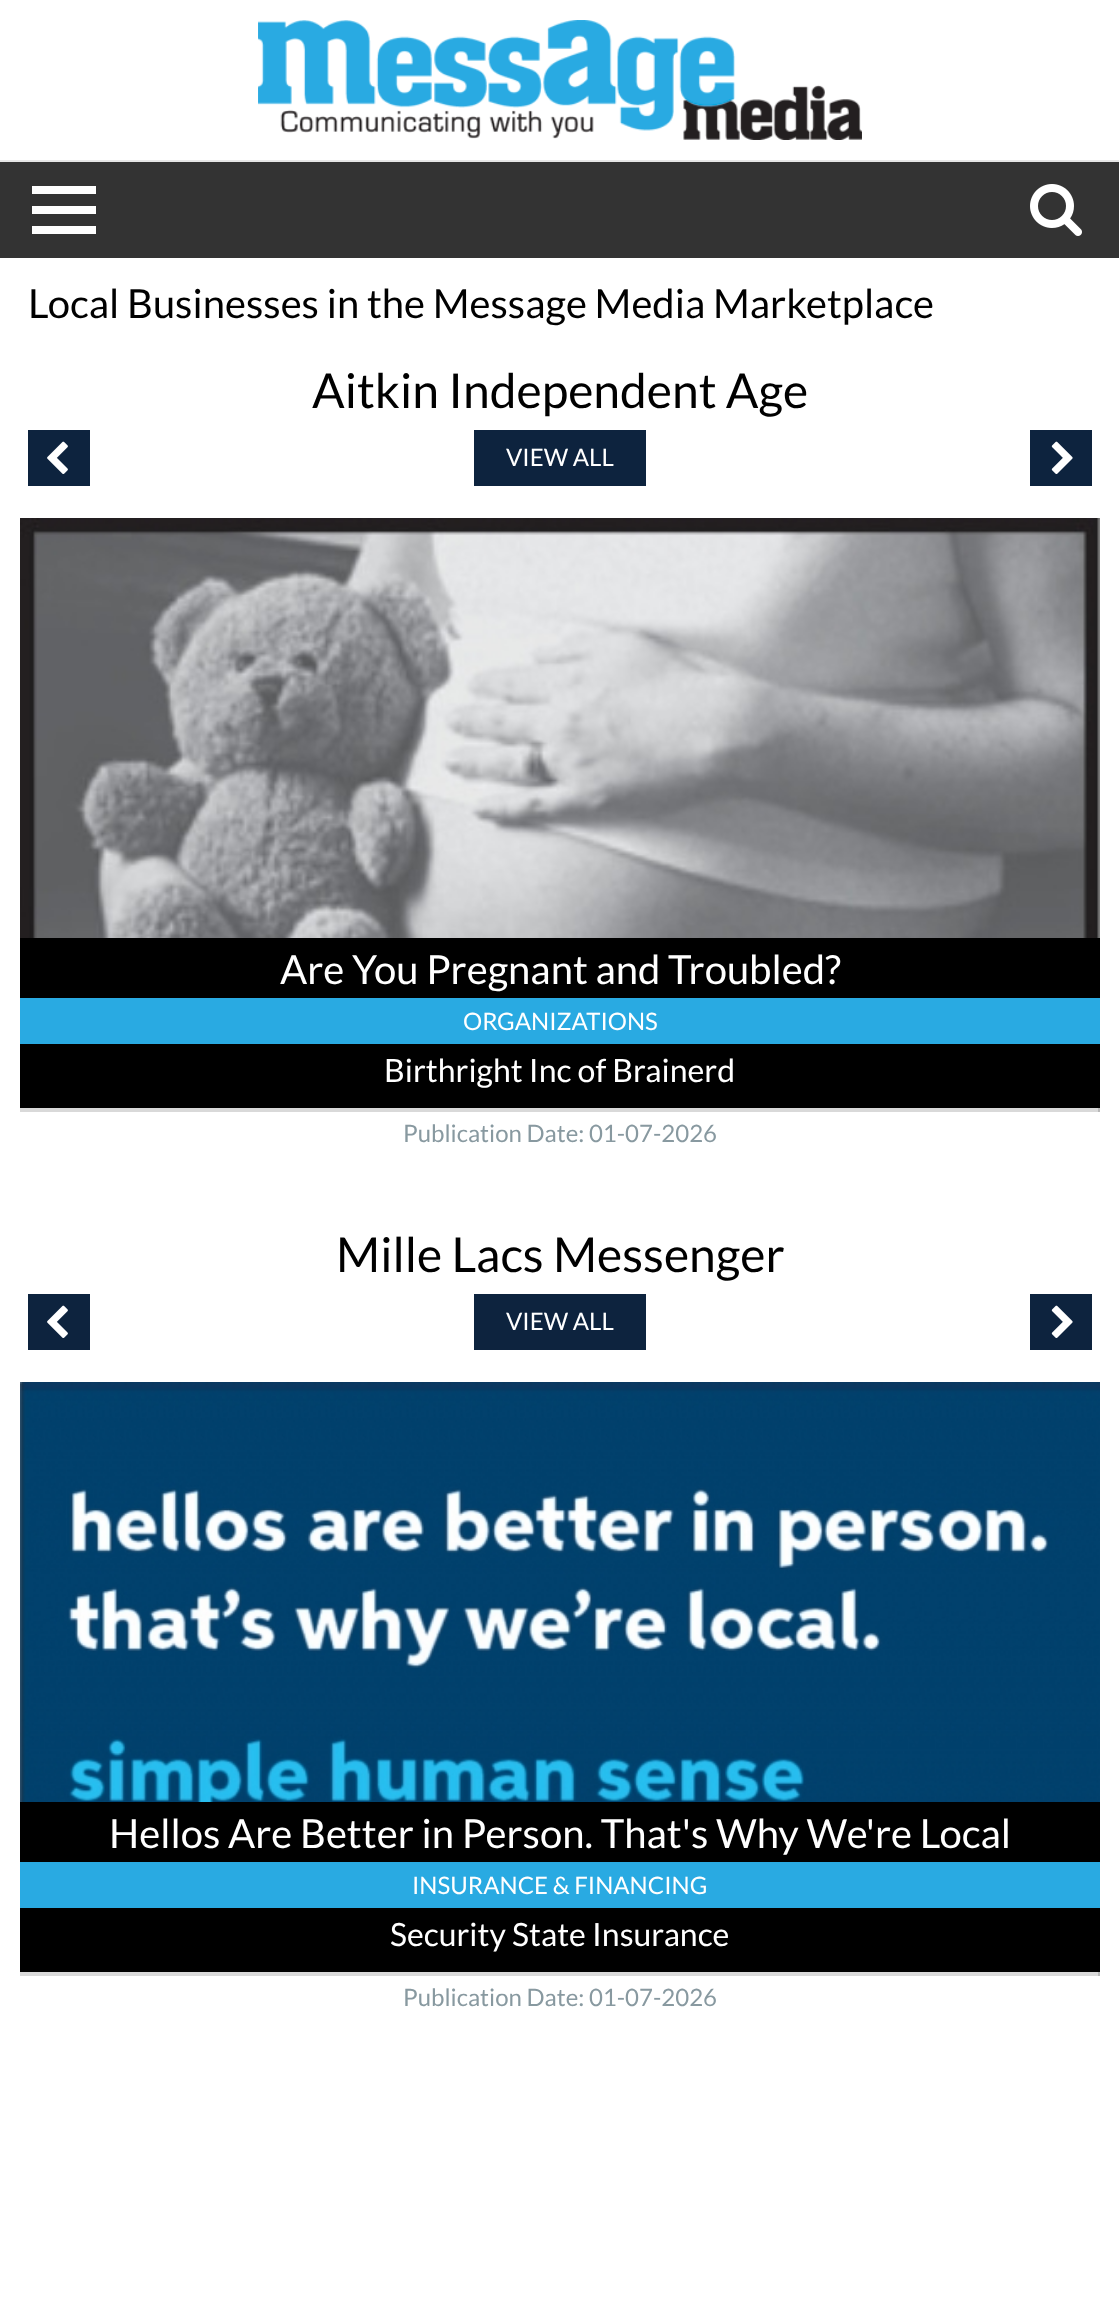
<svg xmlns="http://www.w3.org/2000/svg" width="1119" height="2317">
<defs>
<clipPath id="clip1"><rect x="20" y="518" width="1080" height="640"/></clipPath>
<clipPath id="clip2"><rect x="20" y="1382" width="1080" height="640"/></clipPath>
</defs>
<rect width="100%" height="100%" fill="#fff"/>
<rect y="160" width="1119" height="2" fill="#e6e6e6"/>
<image x="258" y="20" width="604" height="120" href="media/1.png"/>
<rect y="162" width="1119" height="96" fill="#333"/>
<rect x="32" y="186" width="64" height="8" fill="#fff"/>
<rect x="32" y="206" width="64" height="8" fill="#fff"/>
<rect x="32" y="226" width="64" height="8" fill="#fff"/>
<image x="1030" y="184" width="52" height="52" href="media/2.png"/>
<text x="28" y="318" style="font-family:Lato;font-size:40px;fill:#000">Local Businesses in the Message Media Marketplace</text>
<text x="312" y="408" style="font-family:Lato;font-size:48px;fill:#000">Aitkin Independent Age</text>
<rect x="474" y="430" width="172" height="56" fill="#0d233e"/>
<text x="506" y="466" style="font-family:Lato;font-size:24px;fill:#fff">VIEW ALL</text>
<rect x="28" y="430" width="62" height="56" fill="#0d233e"/>
<image x="47" y="441" width="21" height="33" href="media/3.png"/>
<rect x="1030" y="430" width="62" height="56" fill="#0d233e"/>
<image x="1051" y="441" width="22" height="33" href="media/4.png"/>
<g clip-path="url(#clip1)">
<rect x="19" y="517" width="1082" height="594" fill="none" stroke="#d9d9d9" stroke-width="2"/>
</g>
<rect x="20" y="1108" width="1080" height="2" fill="#d9d9d9"/>
<g clip-path="url(#clip1)">
<rect x="1099" y="517" width="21" height="594" fill="none" stroke="#00000026" stroke-width="2"/>
</g>
<image x="20" y="518" width="1080" height="420" href="media/5.png"/>
<rect x="20" y="938" width="1080" height="170" fill="#000"/>
<text x="280" y="984" style="font-family:Lato;font-size:40px;fill:#fff">Are You Pregnant and Troubled?</text>
<rect x="20" y="998" width="1080" height="46" fill="#29aae2"/>
<text x="463" y="1030" style="font-family:Lato;font-size:24px;fill:#fff">ORGANIZATIONS</text>
<text x="384" y="1082" style="font-family:Lato;font-size:32px;fill:#fff">Birthright Inc of Brainerd</text>
<text x="403" y="1142" style="font-family:Lato;font-size:24px;fill:#8899a0">Publication Date: 01-07-2026</text>
<text x="336" y="1272" style="font-family:Lato;font-size:48px;fill:#000">Mille Lacs Messenger</text>
<rect x="474" y="1294" width="172" height="56" fill="#0d233e"/>
<text x="506" y="1330" style="font-family:Lato;font-size:24px;fill:#fff">VIEW ALL</text>
<rect x="28" y="1294" width="62" height="56" fill="#0d233e"/>
<image x="47" y="1305" width="21" height="33" href="media/3.png"/>
<rect x="1030" y="1294" width="62" height="56" fill="#0d233e"/>
<image x="1051" y="1305" width="22" height="33" href="media/4.png"/>
<g clip-path="url(#clip2)">
<rect x="19" y="1381" width="1082" height="594" fill="none" stroke="#d9d9d9" stroke-width="2"/>
</g>
<rect x="20" y="1972" width="1080" height="2" fill="#d9d9d9"/>
<g clip-path="url(#clip2)">
<rect x="1099" y="1381" width="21" height="594" fill="none" stroke="#00000026" stroke-width="2"/>
</g>
<image x="20" y="1382" width="1080" height="420" href="media/6.png"/>
<rect x="20" y="1802" width="1080" height="170" fill="#000"/>
<text x="109" y="1848" style="font-family:Lato;font-size:40px;fill:#fff">Hellos Are Better in Person. That's Why We're Local</text>
<rect x="20" y="1862" width="1080" height="46" fill="#29aae2"/>
<text x="412" y="1894" style="font-family:Lato;font-size:24px;fill:#fff">INSURANCE &amp; FINANCING</text>
<text x="390" y="1946" style="font-family:Lato;font-size:32px;fill:#fff">Security State Insurance</text>
<text x="403" y="2006" style="font-family:Lato;font-size:24px;fill:#8899a0">Publication Date: 01-07-2026</text>
</svg>
